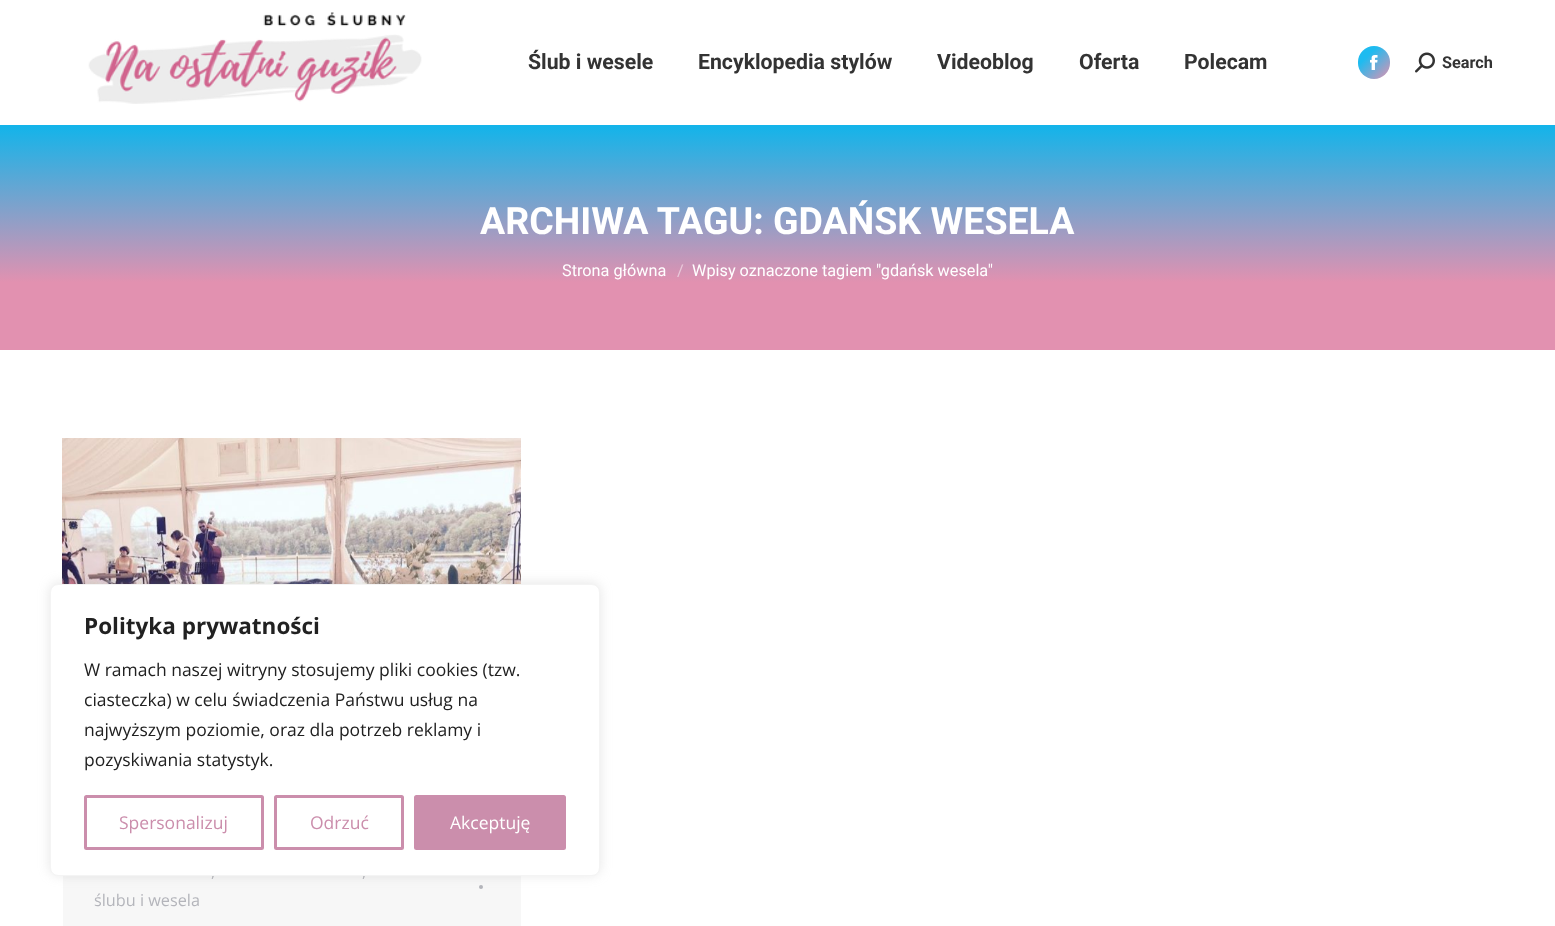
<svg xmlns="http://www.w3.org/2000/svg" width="1555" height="926">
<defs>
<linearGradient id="g1" gradientUnits="userSpaceOnUse" x1="1358" y1="46" x2="1390" y2="79"><stop offset="0.3" stop-color="#1ebbf0"/><stop offset="1" stop-color="#e291b0"/></linearGradient>
<linearGradient id="g2" gradientUnits="userSpaceOnUse" x1="778" y1="350" x2="778" y2="125"><stop offset="0.3" stop-color="#e291b0"/><stop offset="1" stop-color="#12b4ea"/></linearGradient>
</defs>
<rect width="100%" height="100%" fill="#fff"/>
<image x="88" y="12" width="334" height="92" href="media/1.png"/>
<text x="528" y="69" style="font-family:Roboto;font-size:21.25px;font-weight:bold;fill:#333">Ślub i wesele</text>
<text x="698" y="69" style="font-family:Roboto;font-size:21.25px;font-weight:bold;fill:#333">Encyklopedia stylów</text>
<text x="937" y="69" style="font-family:Roboto;font-size:21.25px;font-weight:bold;fill:#333">Videoblog</text>
<text x="1079" y="69" style="font-family:Roboto;font-size:21.25px;font-weight:bold;fill:#333">Oferta</text>
<text x="1184" y="69" style="font-family:Roboto;font-size:21.25px;font-weight:bold;fill:#333">Polecam</text>
<rect x="1358" y="46" width="32" height="33" rx="16" fill="url(#g1)"/>
<image x="1370" y="55" width="8" height="15" href="media/2.png"/>
<image x="1415" y="52" width="20" height="21" href="media/3.png"/>
<text x="1442" y="68" style="font-family:Roboto;font-size:16.25px;font-weight:bold;fill:#333">Search</text>
<rect y="125" width="1555" height="225" fill="url(#g2)"/>
<text x="480" y="234" style="font-family:Roboto;font-size:37.5px;font-weight:bold;fill:#fff">ARCHIWA TAGU: GDAŃSK WESELA</text>
<text x="562" y="276" style="font-family:Roboto;font-size:16.25px;fill:#fff">Strona główna</text>
<text x="677" y="276" style="font-family:Roboto;font-size:16.25px;fill:#e9c9da">/</text>
<text x="692" y="276" style="font-family:Roboto;font-size:16.25px;fill:#fff">Wpisy oznaczone tagiem "gdańsk wesela"</text>
<rect x="63" y="876" width="458" height="50" fill="#f7f7f7"/>
<image x="62" y="438" width="459" height="146" href="media/4.png"/>
<text x="211" y="877" style="font-family:Open Sans;font-size:16.25px;fill:#b4b5bb">,</text>
<text x="362" y="877" style="font-family:Open Sans;font-size:16.25px;fill:#b4b5bb">,</text>
<circle cx="481" cy="887" r="2" fill="#b4b5bb"/>
<text x="94" y="906" style="font-family:Open Sans;font-size:16.25px;fill:#b4b5bb">ślubu i wesela</text>
<rect x="50" y="583" width="550" height="292" rx="8" fill="#acabab4d" filter="blur(6px)"/>
<rect x="50.5" y="584.5" width="549" height="291" rx="7.5" fill="#fff" stroke="#f4f4f4"/>
<text x="84" y="634" style="font-family:Open Sans;font-size:22.5px;font-weight:bold;fill:#212121">Polityka prywatności</text>
<text x="84" y="676" style="font-family:Open Sans;font-size:17.5px;fill:#212121">W ramach naszej witryny stosujemy pliki cookies (tzw.</text>
<text x="84" y="706" style="font-family:Open Sans;font-size:17.5px;fill:#212121">ciasteczka) w celu świadczenia Państwu usług na</text>
<text x="84" y="736" style="font-family:Open Sans;font-size:17.5px;fill:#212121">najwyższym poziomie, oraz dla potrzeb reklamy i</text>
<text x="84" y="766" style="font-family:Open Sans;font-size:17.5px;fill:#212121">pozyskiwania statystyk.</text>
<rect x="85.5" y="796.5" width="177" height="52" rx="1" fill="none" stroke="#cb8eac" stroke-width="3"/>
<text x="119" y="829" style="font-family:Open Sans;font-size:17.5px;fill:#cb8eac">Spersonalizuj</text>
<rect x="275.5" y="796.5" width="127" height="52" rx="1" fill="none" stroke="#cb8eac" stroke-width="3"/>
<text x="310" y="829" style="font-family:Open Sans;font-size:17.5px;fill:#cb8eac">Odrzuć</text>
<rect x="415.5" y="796.5" width="149" height="52" rx="1" fill="#cb8eac" stroke="#cb8eac" stroke-width="3"/>
<text x="450" y="829" style="font-family:Open Sans;font-size:17.5px;fill:#fff">Akceptuję</text>
</svg>
